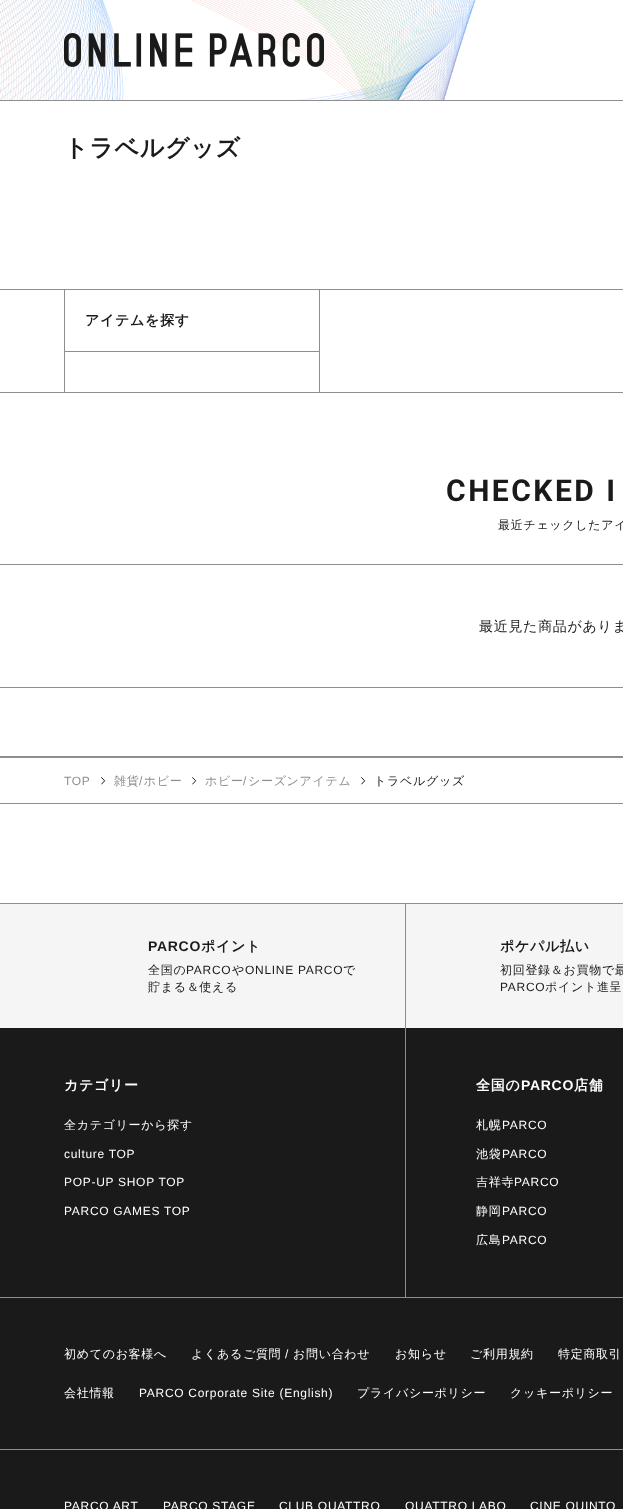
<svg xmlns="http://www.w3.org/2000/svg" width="623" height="1509">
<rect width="100%" height="100%" fill="#fff"/>
<rect y="100" width="623" height="1" fill="#8e8e8e"/>
<image x="0" y="0" width="476" height="100" href="media/1.png"/>
<image x="64" y="33" width="260" height="34" href="media/2.png"/>
<text x="64" y="156" style="font-family:WenQuanYi Zen Hei;font-size:24px;font-weight:bold;letter-spacing:0.7px;fill:#1a1a1a">トラベルグッズ</text>
<rect y="392" width="623" height="1" fill="#8e8e8e"/>
<rect y="289" width="623" height="1" fill="#8e8e8e"/>
<rect x="64" y="289" width="1" height="103" fill="#8e8e8e"/>
<rect x="65" y="351" width="254" height="1" fill="#8e8e8e"/>
<text x="85" y="325" style="font-family:WenQuanYi Zen Hei;font-size:14px;font-weight:bold;letter-spacing:0.7px;fill:#1a1a1a">アイテムを探す</text>
<rect x="319" y="290" width="1" height="102" fill="#8e8e8e"/>
<text x="446" y="501" style="font-family:Roboto;font-size:30px;font-weight:bold;letter-spacing:2.5px;fill:#1a1a1a">CHECKED I</text>
<text x="498" y="529" style="font-family:WenQuanYi Zen Hei;font-size:12px;font-weight:500;letter-spacing:0.7px;fill:#1a1a1a">最近チェックしたアイ</text>
<rect y="564" width="623" height="1" fill="#8e8e8e"/>
<rect y="756" width="623" height="2" fill="#8e8e8e"/>
<text x="479" y="631" style="font-family:WenQuanYi Zen Hei;font-size:14px;font-weight:500;letter-spacing:0.7px;fill:#1a1a1a">最近見た商品がありま</text>
<rect y="687" width="623" height="1" fill="#8e8e8e"/>
<text x="64" y="785" style="font-family:Liberation Sans;font-size:12px;letter-spacing:0.7px;fill:#8e8e8e">TOP</text>
<image x="101" y="777" width="5" height="8" href="media/3.png"/>
<text x="114" y="785" style="font-family:WenQuanYi Zen Hei;font-size:12px;font-weight:500;letter-spacing:0.7px;fill:#8e8e8e">雑貨 ホビー</text>
<text x="139" y="785" style="font-family:Liberation Sans;font-size:12px;letter-spacing:0.7px;fill:#8e8e8e">/</text>
<image x="192" y="777" width="5" height="8" href="media/3.png"/>
<text x="205" y="785" style="font-family:WenQuanYi Zen Hei;font-size:12px;font-weight:500;letter-spacing:0.7px;fill:#8e8e8e">ホビー シーズンアイテム</text>
<text x="243" y="785" style="font-family:Liberation Sans;font-size:12px;letter-spacing:0.7px;fill:#8e8e8e">/</text>
<image x="361" y="777" width="5" height="8" href="media/3.png"/>
<text x="374" y="785" style="font-family:WenQuanYi Zen Hei;font-size:12px;font-weight:500;letter-spacing:0.7px;fill:#1a1a1a">トラベルグッズ</text>
<rect y="803" width="623" height="1" fill="#8e8e8e"/>
<rect y="904" width="623" height="124" fill="#f5f5f5"/>
<rect y="903" width="623" height="1" fill="#8e8e8e"/>
<text x="148" y="951" style="font-family:Liberation Sans;font-size:14px;font-weight:bold;letter-spacing:0.7px;fill:#1a1a1a">PARCO</text>
<text x="201" y="951" style="font-family:WenQuanYi Zen Hei;font-size:14px;font-weight:bold;letter-spacing:0.7px;fill:#1a1a1a">ポイント</text>
<text x="148" y="974" style="font-family:WenQuanYi Zen Hei;font-size:12px;font-weight:500;letter-spacing:0.7px;fill:#1a1a1a">全国の</text>
<text x="186" y="974" style="font-family:Liberation Sans;font-size:12px;letter-spacing:0.7px;fill:#1a1a1a">PARCO</text>
<text x="232" y="974" style="font-family:WenQuanYi Zen Hei;font-size:12px;font-weight:500;letter-spacing:0.7px;fill:#1a1a1a">や</text>
<text x="245" y="974" style="font-family:Liberation Sans;font-size:12px;letter-spacing:0.7px;fill:#1a1a1a">ONLINE PARCO</text>
<text x="343" y="974" style="font-family:WenQuanYi Zen Hei;font-size:12px;font-weight:500;letter-spacing:0.7px;fill:#1a1a1a">で</text>
<text x="148" y="991" style="font-family:WenQuanYi Zen Hei;font-size:12px;font-weight:500;letter-spacing:0.7px;fill:#1a1a1a">貯まる＆使える</text>
<rect y="1028" width="623" height="481" fill="#1a1a1a"/>
<rect x="405" y="904" width="1" height="393" fill="#8e8e8e"/>
<text x="500" y="951" style="font-family:WenQuanYi Zen Hei;font-size:14px;font-weight:bold;letter-spacing:0.7px;fill:#1a1a1a">ポケパル払い</text>
<text x="500" y="974" style="font-family:WenQuanYi Zen Hei;font-size:12px;font-weight:500;letter-spacing:0.7px;fill:#1a1a1a">初回登録＆お買物で最</text>
<text x="500" y="991" style="font-family:Liberation Sans;font-size:12px;letter-spacing:0.7px;fill:#1a1a1a">PARCO</text>
<text x="545" y="991" style="font-family:WenQuanYi Zen Hei;font-size:12px;font-weight:500;letter-spacing:0.7px;fill:#1a1a1a">ポイント進呈</text>
<text x="64" y="1090" style="font-family:WenQuanYi Zen Hei;font-size:14px;font-weight:bold;letter-spacing:0.7px;fill:#fff">カテゴリー</text>
<text x="64" y="1129" style="font-family:WenQuanYi Zen Hei;font-size:12px;font-weight:500;letter-spacing:0.7px;fill:#fff">全カテゴリーから探す</text>
<text x="64" y="1158" style="font-family:Liberation Sans;font-size:12px;letter-spacing:0.7px;fill:#fff">culture TOP</text>
<text x="64" y="1186" style="font-family:Liberation Sans;font-size:12px;letter-spacing:0.7px;fill:#fff">POP-UP SHOP TOP</text>
<text x="64" y="1215" style="font-family:Liberation Sans;font-size:12px;letter-spacing:0.7px;fill:#fff">PARCO GAMES TOP</text>
<text x="476" y="1090" style="font-family:WenQuanYi Zen Hei;font-size:14px;font-weight:bold;letter-spacing:0.7px;fill:#fff">全国の</text>
<text x="521" y="1090" style="font-family:Liberation Sans;font-size:14px;font-weight:bold;letter-spacing:0.7px;fill:#fff">PARCO</text>
<text x="574" y="1090" style="font-family:WenQuanYi Zen Hei;font-size:14px;font-weight:bold;letter-spacing:0.7px;fill:#fff">店舗</text>
<text x="476" y="1129" style="font-family:WenQuanYi Zen Hei;font-size:12px;font-weight:500;letter-spacing:0.7px;fill:#fff">札幌</text>
<text x="502" y="1129" style="font-family:Liberation Sans;font-size:12px;letter-spacing:0.7px;fill:#fff">PARCO</text>
<text x="476" y="1158" style="font-family:WenQuanYi Zen Hei;font-size:12px;font-weight:500;letter-spacing:0.7px;fill:#fff">池袋</text>
<text x="502" y="1158" style="font-family:Liberation Sans;font-size:12px;letter-spacing:0.7px;fill:#fff">PARCO</text>
<text x="476" y="1186" style="font-family:WenQuanYi Zen Hei;font-size:12px;font-weight:500;letter-spacing:0.7px;fill:#fff">吉祥寺</text>
<text x="514" y="1186" style="font-family:Liberation Sans;font-size:12px;letter-spacing:0.7px;fill:#fff">PARCO</text>
<text x="476" y="1215" style="font-family:WenQuanYi Zen Hei;font-size:12px;font-weight:500;letter-spacing:0.7px;fill:#fff">静岡</text>
<text x="502" y="1215" style="font-family:Liberation Sans;font-size:12px;letter-spacing:0.7px;fill:#fff">PARCO</text>
<text x="476" y="1244" style="font-family:WenQuanYi Zen Hei;font-size:12px;font-weight:500;letter-spacing:0.7px;fill:#fff">広島</text>
<text x="502" y="1244" style="font-family:Liberation Sans;font-size:12px;letter-spacing:0.7px;fill:#fff">PARCO</text>
<rect y="1297" width="623" height="1" fill="#8e8e8e"/>
<text x="64" y="1358" style="font-family:WenQuanYi Zen Hei;font-size:12px;font-weight:500;letter-spacing:0.7px;fill:#fff">初めてのお客様へ</text>
<text x="191" y="1358" style="font-family:WenQuanYi Zen Hei;font-size:12px;font-weight:500;letter-spacing:0.7px;fill:#fff">よくあるご質問</text>
<text x="285" y="1358" style="font-family:Liberation Sans;font-size:12px;letter-spacing:0.7px;fill:#fff">/</text>
<text x="293" y="1358" style="font-family:WenQuanYi Zen Hei;font-size:12px;font-weight:500;letter-spacing:0.7px;fill:#fff">お問い合わせ</text>
<text x="395" y="1358" style="font-family:WenQuanYi Zen Hei;font-size:12px;font-weight:500;letter-spacing:0.7px;fill:#fff">お知らせ</text>
<text x="470" y="1358" style="font-family:WenQuanYi Zen Hei;font-size:12px;font-weight:500;letter-spacing:0.7px;fill:#fff">ご利用規約</text>
<text x="558" y="1358" style="font-family:WenQuanYi Zen Hei;font-size:12px;font-weight:500;letter-spacing:0.7px;fill:#fff">特定商取引</text>
<text x="64" y="1397" style="font-family:WenQuanYi Zen Hei;font-size:12px;font-weight:500;letter-spacing:0.7px;fill:#fff">会社情報</text>
<text x="139" y="1397" style="font-family:Liberation Sans;font-size:12px;letter-spacing:0.7px;fill:#fff">PARCO Corporate Site (English)</text>
<text x="357" y="1397" style="font-family:WenQuanYi Zen Hei;font-size:12px;font-weight:500;letter-spacing:0.7px;fill:#fff">プライバシーポリシー</text>
<text x="510" y="1397" style="font-family:WenQuanYi Zen Hei;font-size:12px;font-weight:500;letter-spacing:0.7px;fill:#fff">クッキーポリシー</text>
<rect y="1449" width="623" height="1" fill="#8e8e8e"/>
<text x="64" y="1510" style="font-family:Liberation Sans;font-size:12px;letter-spacing:0.7px;fill:#fff">PARCO ART</text>
<text x="163" y="1510" style="font-family:Liberation Sans;font-size:12px;letter-spacing:0.7px;fill:#fff">PARCO STAGE</text>
<text x="279" y="1510" style="font-family:Liberation Sans;font-size:12px;letter-spacing:0.7px;fill:#fff">CLUB QUATTRO</text>
<text x="405" y="1510" style="font-family:Liberation Sans;font-size:12px;letter-spacing:0.7px;fill:#fff">QUATTRO LABO</text>
<text x="530" y="1510" style="font-family:Liberation Sans;font-size:12px;letter-spacing:0.7px;fill:#fff">CINE QUINTO</text>
</svg>
